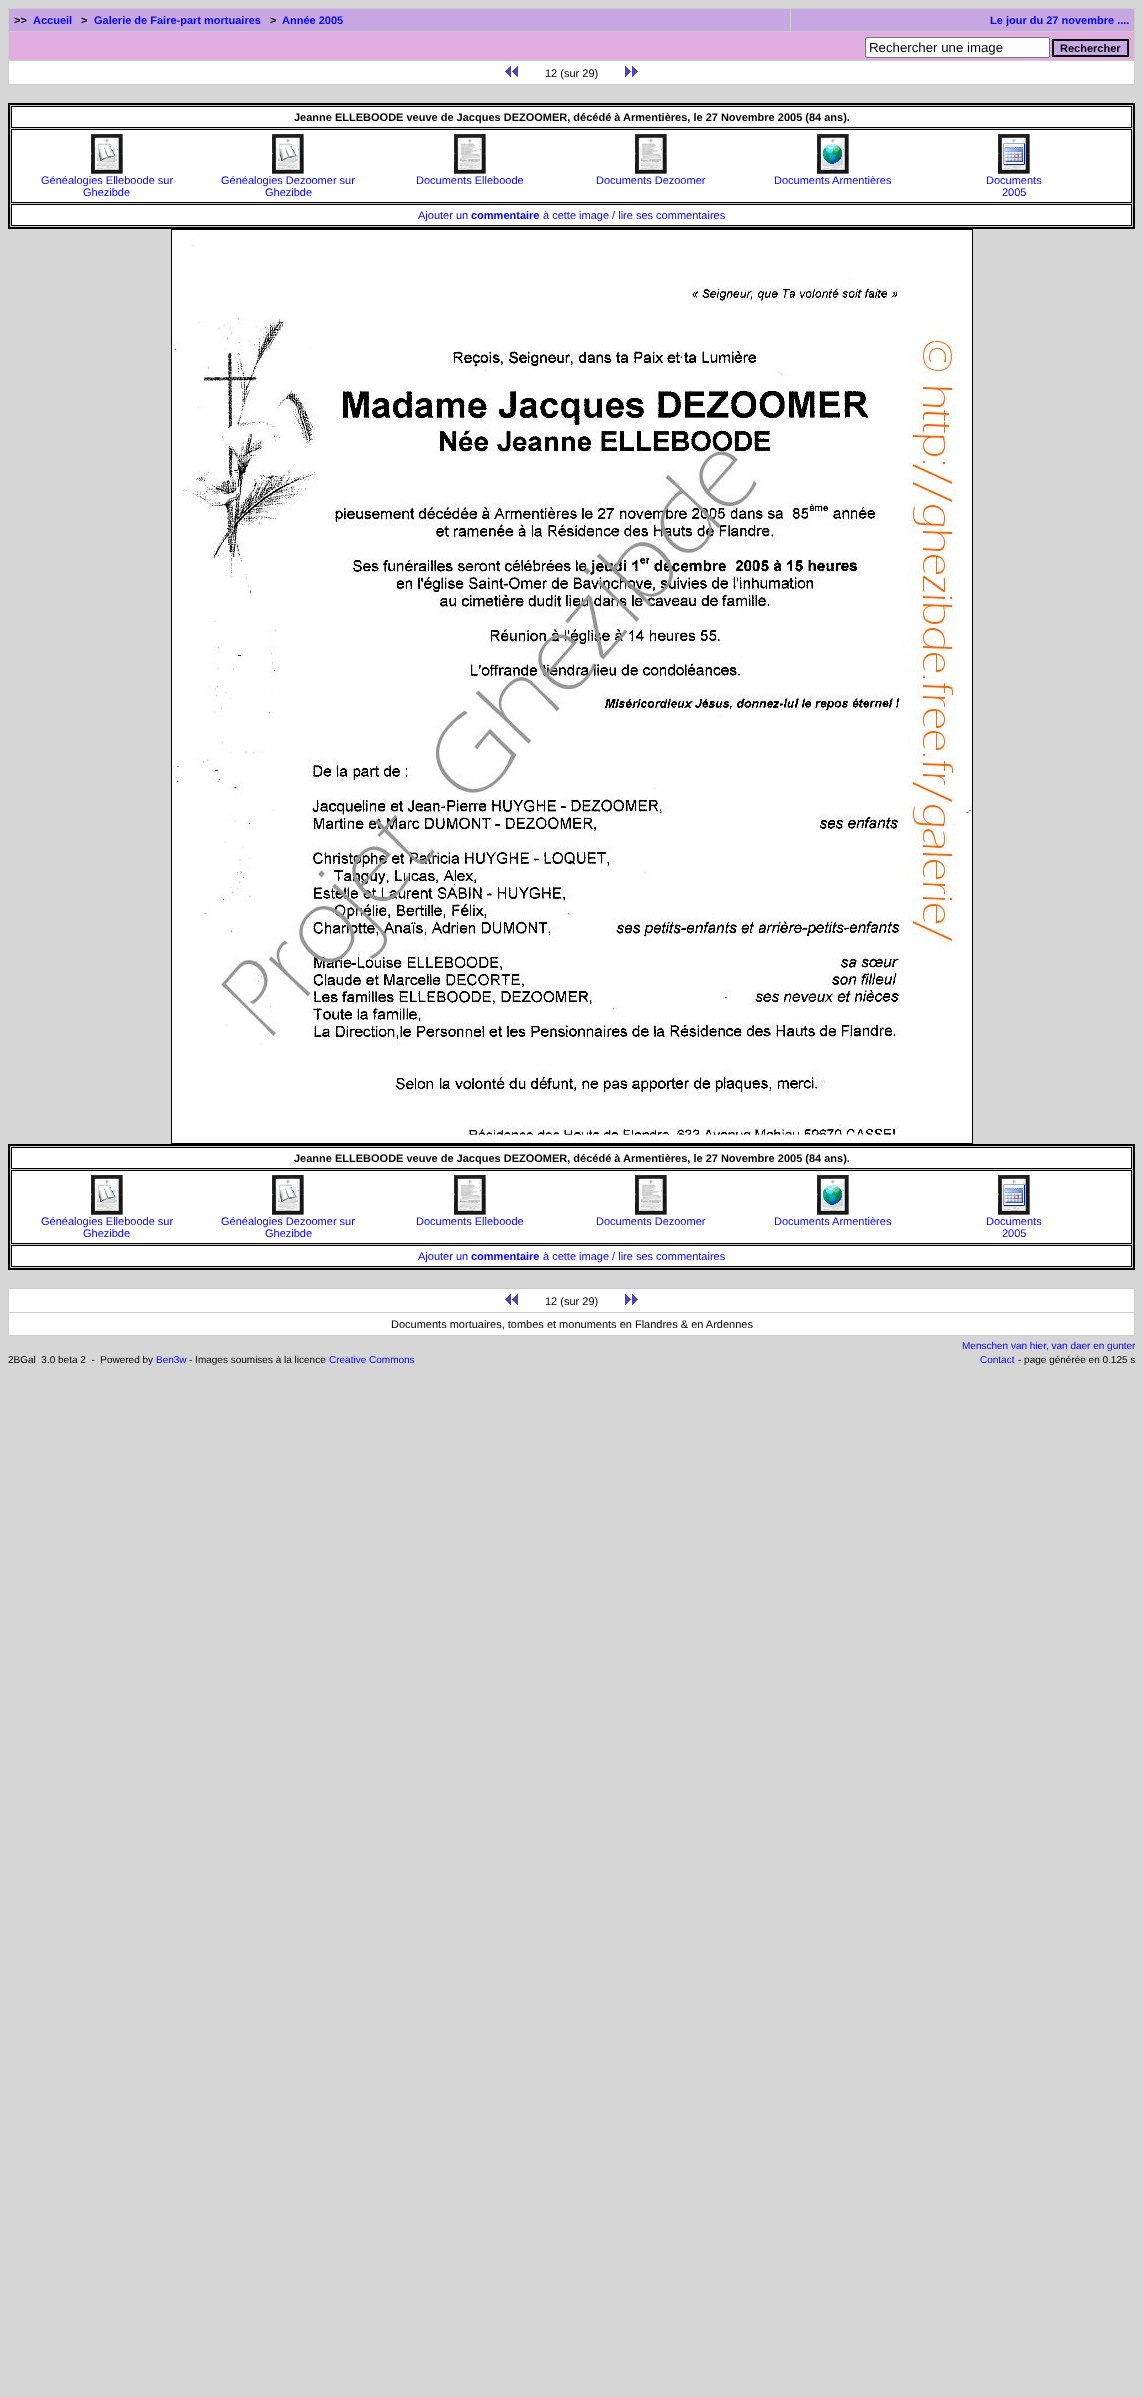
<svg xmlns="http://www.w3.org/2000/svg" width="1143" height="2397">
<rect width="100%" height="100%" fill="#d6d6d6"/>
<rect x="8" y="8" width="1127" height="77" fill="#ccc"/>
<rect x="9" y="9" width="781" height="22" fill="#c8a8e4"/>
<text x="14" y="24" style="font-family:Liberation Sans;font-size:11px;font-weight:bold;fill:#000">&gt;&gt;</text>
<text x="33" y="24" style="font-family:Liberation Sans;font-size:11px;font-weight:bold;fill:#00f">Accueil</text>
<text x="81" y="24" style="font-family:Liberation Sans;font-size:11px;font-weight:bold;fill:#000">&gt;</text>
<text x="94" y="24" style="font-family:Liberation Sans;font-size:11px;font-weight:bold;fill:#00f">Galerie de Faire-part mortuaires</text>
<text x="270" y="24" style="font-family:Liberation Sans;font-size:11px;font-weight:bold;fill:#000">&gt;</text>
<text x="282" y="24" style="font-family:Liberation Sans;font-size:11px;font-weight:bold;fill:#00f">Année 2005</text>
<rect x="791" y="9" width="343" height="22" fill="#c8a8e4"/>
<text x="990" y="24" style="font-family:Liberation Sans;font-size:11px;font-weight:bold;fill:#00f">Le jour du 27 novembre ....</text>
<rect x="9" y="32" width="1125" height="28" fill="#e1ade1"/>
<rect x="865.5" y="37.5" width="184" height="20" rx="1.5" fill="#fff" stroke="#767676"/>
<text x="869" y="52" style="font-family:Liberation Sans;font-size:13.25px;fill:#000">Rechercher une image</text>
<rect x="1053" y="40" width="75" height="16" fill="#c8a8e4" stroke="#000" stroke-width="2"/>
<text x="1060" y="52" style="font-family:Liberation Sans;font-size:11px;font-weight:bold;fill:#000">Rechercher</text>
<rect x="9" y="61" width="1125" height="23" fill="#fff"/>
<image x="505" y="66" width="13" height="11" href="media/1.png"/>
<text x="545" y="77" style="font-family:Liberation Sans;font-size:11px;fill:#000">12 (sur 29)</text>
<image x="625" y="66" width="13" height="11" href="media/2.png"/>
<rect x="9" y="104" width="1125" height="124" fill="#ccc" stroke="#000" stroke-width="2"/>
<rect x="11.5" y="106.5" width="1120" height="21" fill="#fff" stroke="#000"/>
<text x="294" y="121" style="font-family:Liberation Sans;font-size:11px;font-weight:bold;fill:#000">Jeanne ELLEBOODE veuve de Jacques DEZOOMER, décédé à Armentières, le 27 Novembre 2005 (84 ans).</text>
<rect x="11.5" y="129.5" width="1120" height="73" fill="#fff" stroke="#000"/>
<image x="91" y="134" width="32" height="40" href="media/3.png"/>
<text x="41" y="184" style="font-family:Liberation Sans;font-size:11px;fill:#00f">Généalogies Elleboode sur</text>
<text x="83" y="196" style="font-family:Liberation Sans;font-size:11px;fill:#00f">Ghezibde</text>
<image x="272" y="134" width="32" height="40" href="media/3.png"/>
<text x="221" y="184" style="font-family:Liberation Sans;font-size:11px;fill:#00f">Généalogies Dezoomer sur</text>
<text x="265" y="196" style="font-family:Liberation Sans;font-size:11px;fill:#00f">Ghezibde</text>
<image x="454" y="134" width="32" height="40" href="media/4.png"/>
<text x="416" y="184" style="font-family:Liberation Sans;font-size:11px;fill:#00f">Documents Elleboode</text>
<image x="635" y="134" width="32" height="40" href="media/4.png"/>
<text x="596" y="184" style="font-family:Liberation Sans;font-size:11px;fill:#00f">Documents Dezoomer</text>
<image x="817" y="134" width="32" height="40" href="media/5.png"/>
<text x="774" y="184" style="font-family:Liberation Sans;font-size:11px;fill:#00f">Documents Armentières</text>
<image x="998" y="134" width="32" height="40" href="media/6.png"/>
<text x="986" y="184" style="font-family:Liberation Sans;font-size:11px;fill:#00f">Documents</text>
<text x="1002" y="196" style="font-family:Liberation Sans;font-size:11px;fill:#00f">2005</text>
<rect x="11.5" y="204.5" width="1120" height="21" fill="#fff" stroke="#000"/>
<text x="418" y="219" style="font-family:Liberation Sans;font-size:11px;fill:#00f">Ajouter un</text>
<text x="471" y="219" style="font-family:Liberation Sans;font-size:11px;font-weight:bold;fill:#00f">commentaire</text>
<text x="543" y="219" style="font-family:Liberation Sans;font-size:11px;fill:#00f">à cette image / lire ses commentaires</text>
<rect x="171.5" y="229.5" width="801" height="914" fill="none" stroke="#000"/>
<image x="172" y="230" width="800" height="913" href="media/7.png"/>
<rect x="9" y="1145" width="1125" height="124" fill="#ccc" stroke="#000" stroke-width="2"/>
<rect x="11.5" y="1147.5" width="1120" height="21" fill="#fff" stroke="#000"/>
<text x="294" y="1162" style="font-family:Liberation Sans;font-size:11px;font-weight:bold;fill:#000">Jeanne ELLEBOODE veuve de Jacques DEZOOMER, décédé à Armentières, le 27 Novembre 2005 (84 ans).</text>
<rect x="11.5" y="1170.5" width="1120" height="73" fill="#fff" stroke="#000"/>
<image x="91" y="1175" width="32" height="40" href="media/3.png"/>
<text x="41" y="1225" style="font-family:Liberation Sans;font-size:11px;fill:#00f">Généalogies Elleboode sur</text>
<text x="83" y="1237" style="font-family:Liberation Sans;font-size:11px;fill:#00f">Ghezibde</text>
<image x="272" y="1175" width="32" height="40" href="media/3.png"/>
<text x="221" y="1225" style="font-family:Liberation Sans;font-size:11px;fill:#00f">Généalogies Dezoomer sur</text>
<text x="265" y="1237" style="font-family:Liberation Sans;font-size:11px;fill:#00f">Ghezibde</text>
<image x="454" y="1175" width="32" height="40" href="media/4.png"/>
<text x="416" y="1225" style="font-family:Liberation Sans;font-size:11px;fill:#00f">Documents Elleboode</text>
<image x="635" y="1175" width="32" height="40" href="media/4.png"/>
<text x="596" y="1225" style="font-family:Liberation Sans;font-size:11px;fill:#00f">Documents Dezoomer</text>
<image x="817" y="1175" width="32" height="40" href="media/5.png"/>
<text x="774" y="1225" style="font-family:Liberation Sans;font-size:11px;fill:#00f">Documents Armentières</text>
<image x="998" y="1175" width="32" height="40" href="media/6.png"/>
<text x="986" y="1225" style="font-family:Liberation Sans;font-size:11px;fill:#00f">Documents</text>
<text x="1002" y="1237" style="font-family:Liberation Sans;font-size:11px;fill:#00f">2005</text>
<rect x="11.5" y="1245.5" width="1120" height="21" fill="#fff" stroke="#000"/>
<text x="418" y="1260" style="font-family:Liberation Sans;font-size:11px;fill:#00f">Ajouter un</text>
<text x="471" y="1260" style="font-family:Liberation Sans;font-size:11px;font-weight:bold;fill:#00f">commentaire</text>
<text x="543" y="1260" style="font-family:Liberation Sans;font-size:11px;fill:#00f">à cette image / lire ses commentaires</text>
<rect x="8" y="1288" width="1127" height="48" fill="#ccc"/>
<rect x="9" y="1289" width="1125" height="23" fill="#fff"/>
<image x="505" y="1294" width="13" height="11" href="media/1.png"/>
<text x="545" y="1305" style="font-family:Liberation Sans;font-size:11px;fill:#000">12 (sur 29)</text>
<image x="625" y="1294" width="13" height="11" href="media/2.png"/>
<rect x="9" y="1313" width="1125" height="22" fill="#fff"/>
<text x="391" y="1328" style="font-family:Liberation Sans;font-size:11px;fill:#000">Documents mortuaires, tombes et monuments en Flandres &amp; en Ardennes</text>
<text x="962" y="1349" style="font-family:Liberation Sans;font-size:10px;fill:#00f">Menschen van hier, van daer en gunter</text>
<text x="8" y="1363" style="font-family:Liberation Sans;font-size:10px;fill:#000" xml:space="preserve">2BGal  3.0 beta 2  -  Powered by</text>
<text x="156" y="1363" style="font-family:Liberation Sans;font-size:10px;fill:#00f">Ben3w</text>
<text x="189" y="1363" style="font-family:Liberation Sans;font-size:10px;fill:#000">- Images soumises à la licence</text>
<text x="329" y="1363" style="font-family:Liberation Sans;font-size:10px;fill:#00f">Creative Commons</text>
<text x="980" y="1363" style="font-family:Liberation Sans;font-size:10px;fill:#00f">Contact</text>
<text x="1018" y="1363" style="font-family:Liberation Sans;font-size:10px;fill:#000">- page générée en 0.125 s</text>
</svg>
